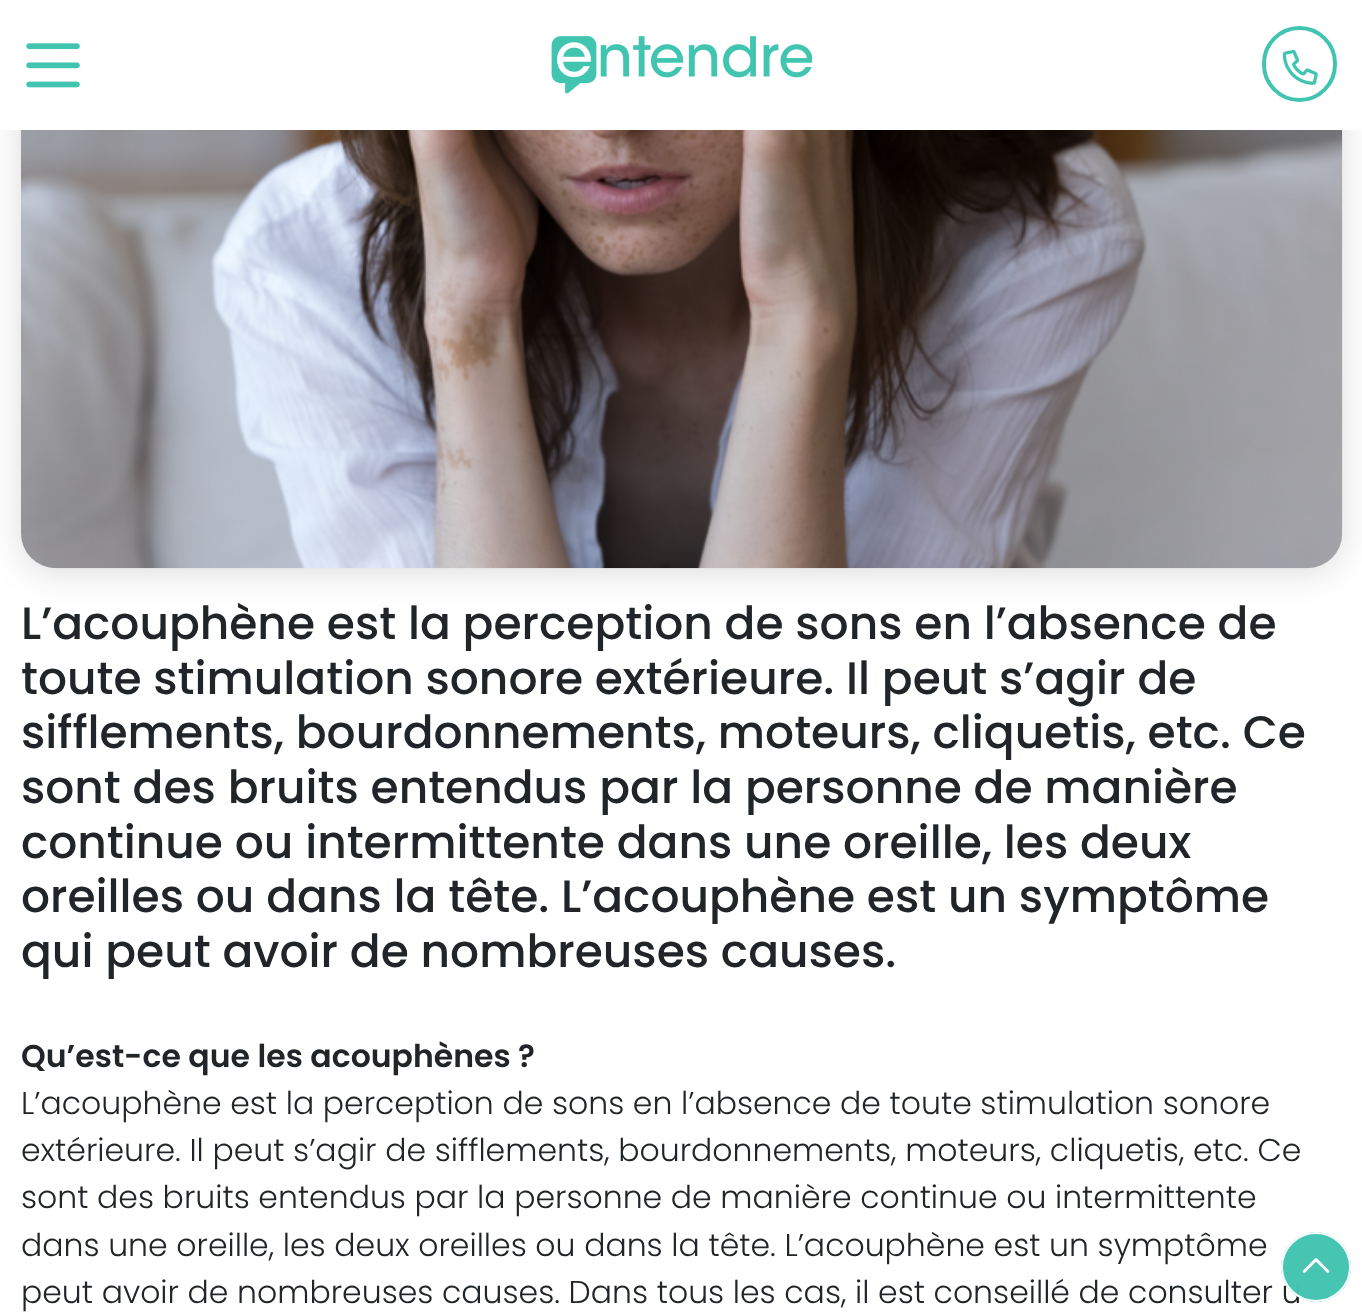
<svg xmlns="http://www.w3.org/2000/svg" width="1362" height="1314">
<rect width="100%" height="100%" fill="#fff"/>
<rect x="21" y="-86" width="1321" height="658" rx="35" fill="#00000024" filter="blur(17px)"/>
<rect width="1362" height="130" fill="#fff"/>
<image x="551" y="36" width="261" height="58" href="media/1.png"/>
<rect x="1264" y="28" width="71" height="72" rx="35.5" fill="none" stroke="#41c4b0" stroke-width="4"/>
<image x="1282" y="49" width="36" height="36" href="media/2.png"/>
<image x="26" y="43" width="54" height="45" href="media/3.png"/>
<text x="21" y="1303" style="font-family:Poppins;font-size:31.5px;font-weight:300;fill:#212529">peut avoir de nombreuses causes. Dans tous les cas, il est conseillé de consulter u</text>
<circle cx="1316" cy="1267" r="35" fill="#41c4b0fa"/>
<circle cx="1316" cy="1267" r="34" fill="none" stroke="#fffffffa" stroke-width="2"/>
<image x="1302" y="1258" width="28" height="15" href="media/4.png"/>
<image x="21" y="130" width="1322" height="439" href="media/5.png"/>
<text x="21" y="639" style="font-family:Poppins;font-size:45.5px;font-weight:500;fill:#212529">L’acouphène est la perception de sons en l’absence de</text>
<text x="21" y="694" style="font-family:Poppins;font-size:45.5px;font-weight:500;fill:#212529">toute stimulation sonore extérieure. Il peut s’agir de</text>
<text x="21" y="748" style="font-family:Poppins;font-size:45.5px;font-weight:500;fill:#212529">sifflements, bourdonnements, moteurs, cliquetis, etc. Ce</text>
<text x="21" y="803" style="font-family:Poppins;font-size:45.5px;font-weight:500;fill:#212529">sont des bruits entendus par la personne de manière</text>
<text x="21" y="858" style="font-family:Poppins;font-size:45.5px;font-weight:500;fill:#212529">continue ou intermittente dans une oreille, les deux</text>
<text x="21" y="912" style="font-family:Poppins;font-size:45.5px;font-weight:500;fill:#212529">oreilles ou dans la tête. L’acouphène est un symptôme</text>
<text x="21" y="967" style="font-family:Poppins;font-size:45.5px;font-weight:500;fill:#212529">qui peut avoir de nombreuses causes.</text>
<text x="21" y="1067" style="font-family:Poppins;font-size:31.5px;font-weight:600;fill:#212529">Qu’est-ce que les acouphènes ?</text>
<text x="21" y="1114" style="font-family:Poppins;font-size:31.5px;font-weight:300;fill:#212529">L’acouphène est la perception de sons en l’absence de toute stimulation sonore</text>
<text x="21" y="1161" style="font-family:Poppins;font-size:31.5px;font-weight:300;fill:#212529">extérieure. Il peut s’agir de sifflements, bourdonnements, moteurs, cliquetis, etc. Ce</text>
<text x="21" y="1208" style="font-family:Poppins;font-size:31.5px;font-weight:300;fill:#212529">sont des bruits entendus par la personne de manière continue ou intermittente</text>
<text x="21" y="1256" style="font-family:Poppins;font-size:31.5px;font-weight:300;fill:#212529">dans une oreille, les deux oreilles ou dans la tête. L’acouphène est un symptôme</text>
</svg>
